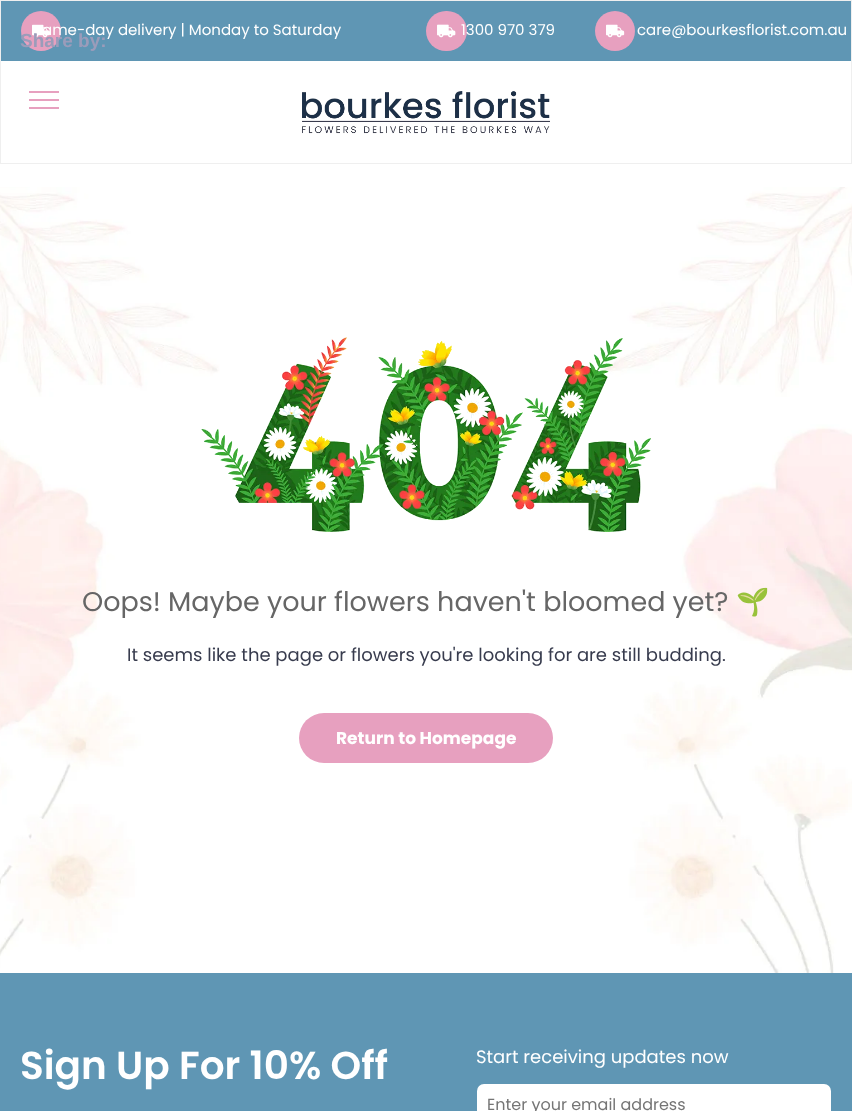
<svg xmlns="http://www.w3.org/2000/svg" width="852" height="1111">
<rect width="100%" height="100%" fill="#fff"/>
<rect x="0.5" y="0.5" width="851" height="163" fill="none" stroke="#efefef"/>
<rect x="1" y="1" width="850" height="60" fill="#5f96b4"/>
<circle cx="41" cy="31" r="20" fill="#e7a0bf"/>
<image x="32" y="24" width="18" height="14" href="media/1.png"/>
<text x="42" y="35" style="font-family:Poppins;font-size:15px;fill:#fff">ame-day delivery | Monday to Saturday</text>
<rect x="426" y="11" width="41" height="40" rx="20" fill="#e7a0bf"/>
<image x="437" y="24" width="19" height="14" href="media/2.png"/>
<text x="461" y="35" style="font-family:Poppins;font-size:15px;fill:#fff">1300 970 379</text>
<circle cx="615" cy="31" r="20" fill="#e7a0bf"/>
<image x="606" y="24" width="19" height="14" href="media/3.png"/>
<text x="637" y="35" style="font-family:Poppins;font-size:15px;fill:#fff">care@bourkesflorist.com.au</text>
<image x="302" y="91" width="248" height="43" href="media/4.png"/>
<rect x="29" y="91" width="30" height="2" fill="#e7a0bf"/>
<rect x="29" y="99" width="30" height="2" fill="#e7a0bf"/>
<rect x="29" y="107" width="30" height="2" fill="#e7a0bf"/>
<image x="0" y="187" width="852" height="786" href="media/5.png"/>
<image x="201" y="337" width="450" height="195" href="media/6.png"/>
<text x="82" y="611" style="font-family:Poppins;font-size:27px;fill:#666">Oops! Maybe your flowers haven't bloomed yet?</text>
<text x="736" y="611" style="font-family:Noto Color Emoji;font-size:27px;fill:#666">🌱</text>
<text x="127" y="661" style="font-family:Poppins;font-size:18px;fill:#383c4e">It seems like the page or flowers you're looking for are still budding.</text>
<rect x="299" y="713" width="254" height="50" rx="25" fill="#e7a0bf"/>
<text x="336" y="744" style="font-family:Poppins;font-size:17px;font-weight:bold;fill:#fff">Return to Homepage</text>
<rect y="973" width="852" height="138" fill="#5f96b4"/>
<text x="20" y="1079" style="font-family:Poppins;font-size:39px;font-weight:600;fill:#fff">Sign Up For 10% Off</text>
<text x="476" y="1063" style="font-family:Poppins;font-size:18px;fill:#fff">Start receiving updates now</text>
<rect x="477" y="1084" width="354" height="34" rx="7" fill="#fff"/>
<text x="487" y="1110" style="font-family:Poppins;font-size:16px;fill:#757575">Enter your email address</text>
<text x="20" y="47" style="font-family:Liberation Sans;font-size:19px;font-weight:bold;fill:#9b9cba">Share by:</text>
</svg>
